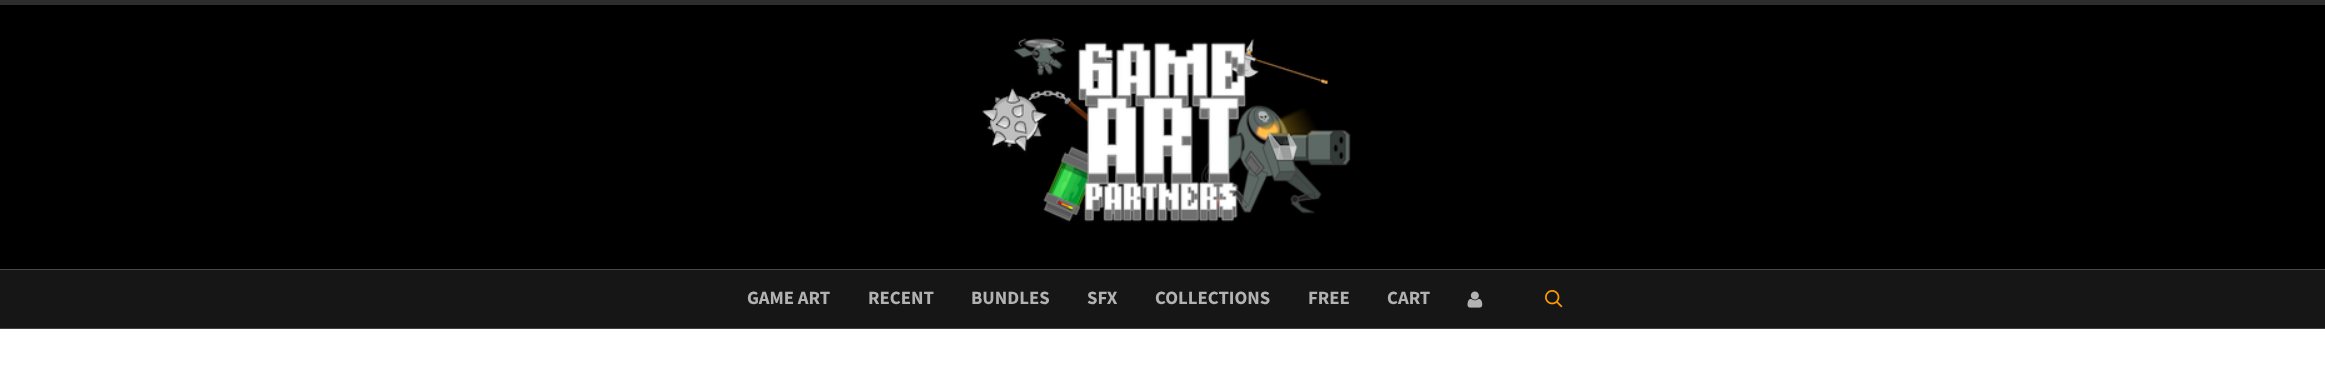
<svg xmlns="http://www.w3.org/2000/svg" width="2325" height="367">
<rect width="100%" height="100%" fill="#fff"/>
<rect width="2325" height="5" fill="#2d2d2d"/>
<rect y="5" width="2325" height="264" fill="#000"/>
<rect y="328" width="2325" height="1" fill="#424242"/>
<image x="982" y="37" width="369" height="187" href="media/1.png"/>
<rect y="270" width="2325" height="58" fill="#161616"/>
<rect y="269" width="2325" height="1" fill="#494949"/>
<text x="747" y="304" style="font-family:Source Sans Pro;font-size:18.75px;font-weight:bold;fill:#b2b2b2">GAME ART</text>
<text x="868" y="304" style="font-family:Source Sans Pro;font-size:18.75px;font-weight:bold;fill:#b2b2b2">RECENT</text>
<text x="971" y="304" style="font-family:Source Sans Pro;font-size:18.75px;font-weight:bold;fill:#b2b2b2">BUNDLES</text>
<text x="1087" y="304" style="font-family:Source Sans Pro;font-size:18.75px;font-weight:bold;fill:#b2b2b2">SFX</text>
<text x="1155" y="304" style="font-family:Source Sans Pro;font-size:18.75px;font-weight:bold;fill:#b2b2b2">COLLECTIONS</text>
<text x="1308" y="304" style="font-family:Source Sans Pro;font-size:18.75px;font-weight:bold;fill:#b2b2b2">FREE</text>
<text x="1387" y="304" style="font-family:Source Sans Pro;font-size:18.75px;font-weight:bold;fill:#b2b2b2">CART</text>
<image x="1467" y="291" width="16" height="17" href="media/2.png"/>
<image x="1545" y="290" width="18" height="18" href="media/3.png"/>
</svg>
